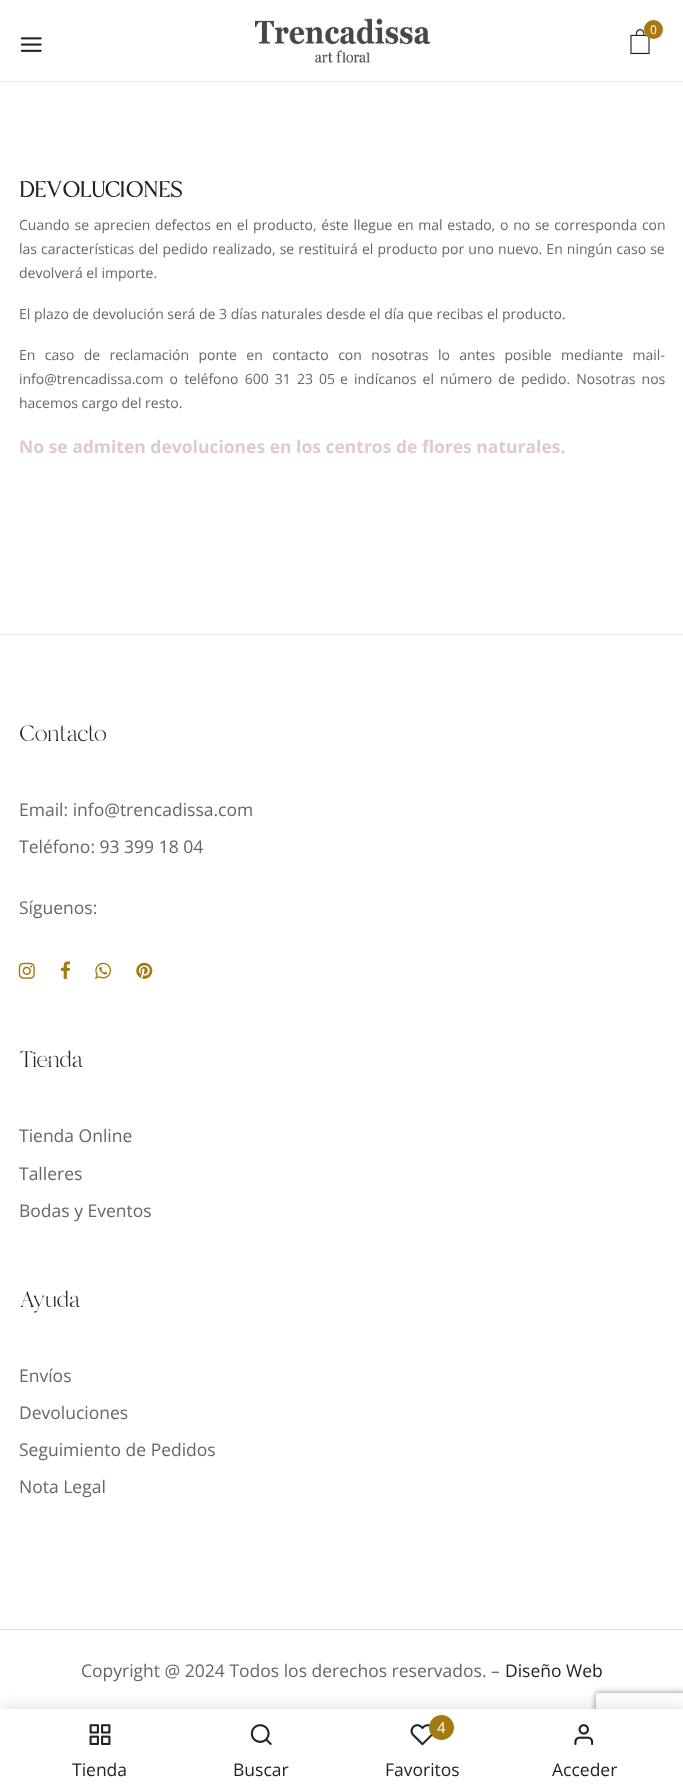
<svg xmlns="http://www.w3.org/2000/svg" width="683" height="1785">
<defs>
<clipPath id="clip1"><path d="M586 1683h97v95h-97zm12.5 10h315c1.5 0 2.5 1 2.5 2.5v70c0 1.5-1 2.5-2.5 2.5h-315c-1.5 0-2.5-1-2.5-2.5v-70c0-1.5 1-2.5 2.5-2.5z" clip-rule="evenodd"/></clipPath>
</defs>
<rect width="100%" height="100%" fill="#fff"/>
<image x="255" y="18" width="175" height="45" href="media/1.png"/>
<image x="630" y="29" width="20" height="26" href="media/2.png"/>
<circle cx="653.5" cy="29.5" r="9.5" fill="#a37a10"/>
<text x="650" y="34" style="font-family:Open Sans;font-size:12px;fill:#fff">0</text>
<image x="20" y="37" width="22" height="15" href="media/3.png"/>
<rect x="-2" y="1708" width="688" height="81" fill="#8f8f8f4d" filter="blur(7.5px)"/>
<g clip-path="url(#clip1)">
<rect x="596" y="1693" width="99" height="75" rx="2.5" fill="#808080" filter="blur(3px)"/>
</g>
<rect y="1709" width="683" height="76" fill="#fff"/>
<image x="89" y="1724" width="22" height="21" href="media/4.png"/>
<text x="72" y="1776" style="font-family:Open Sans;font-size:17.5px;fill:#222">Tienda</text>
<image x="250" y="1724" width="22" height="21" href="media/5.png"/>
<text x="233" y="1776" style="font-family:Open Sans;font-size:17.5px;fill:#222">Buscar</text>
<image x="410" y="1724" width="23" height="22" href="media/6.png"/>
<circle cx="441.5" cy="1727.5" r="12.5" fill="#a37a10"/>
<text x="437" y="1733" style="font-family:Open Sans;font-size:15px;fill:#fff">4</text>
<text x="385" y="1776" style="font-family:Open Sans;font-size:17.5px;fill:#222">Favoritos</text>
<image x="574" y="1724" width="20" height="21" href="media/7.png"/>
<text x="552" y="1776" style="font-family:Open Sans;font-size:17.5px;fill:#222">Acceder</text>
<rect y="81" width="683" height="1" fill="#e9e9e9"/>
<text x="19" y="197" style="font-family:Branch;font-size:22px;font-weight:bold;fill:#222">DEVOLUCIONES</text>
<text x="19" y="230" word-spacing="1.1" style="font-family:Open Sans;font-size:14px;fill:#666">Cuando se aprecien defectos en el producto, éste llegue en mal estado, o no se corresponda con</text>
<text x="19" y="254" word-spacing="0.5" style="font-family:Open Sans;font-size:14px;fill:#666">las características del pedido realizado, se restituirá el producto por uno nuevo. En ningún caso se</text>
<text x="19" y="278" style="font-family:Open Sans;font-size:14px;fill:#666">devolverá el importe.</text>
<text x="19" y="319" style="font-family:Open Sans;font-size:14px;fill:#666">El plazo de devolución será de 3 días naturales desde el día que recibas el producto.</text>
<text x="19" y="360" word-spacing="5.75" style="font-family:Open Sans;font-size:14px;fill:#666">En caso de reclamación ponte en contacto con nosotras lo antes posible mediante mail-</text>
<text x="19" y="384" word-spacing="2.5" style="font-family:Open Sans;font-size:14px;fill:#666">info@trencadissa.com o teléfono 600 31 23 05</text>
<text x="340" y="384" word-spacing="2.5" style="font-family:Open Sans;font-size:14px;fill:#666">e indícanos el número de pedido. Nosotras nos</text>
<text x="19" y="408" style="font-family:Open Sans;font-size:14px;fill:#666">hacemos cargo del resto.</text>
<text x="19" y="453" style="font-family:Open Sans;font-size:17.5px;font-weight:bold;fill:#dfcbcc">No se admiten devoluciones en los centros de flores naturales.</text>
<rect y="634" width="683" height="1" fill="#e9e9e9"/>
<text x="19" y="741" style="font-family:Branch;font-size:22.5px;fill:#222">Contacto</text>
<text x="19" y="816" style="font-family:Open Sans;font-size:17.5px;fill:#666">Email: info@trencadissa.com</text>
<text x="19" y="853" style="font-family:Open Sans;font-size:17.5px;fill:#666">Teléfono: 93 399 18 04</text>
<text x="19" y="914" style="font-family:Open Sans;font-size:17.5px;fill:#666">Síguenos:</text>
<image x="18" y="962" width="17" height="17" href="media/8.png"/>
<image x="61" y="961" width="10" height="18" href="media/9.png"/>
<image x="95" y="962" width="17" height="17" href="media/10.png"/>
<image x="136" y="962" width="17" height="17" href="media/11.png"/>
<text x="19" y="1067" style="font-family:Branch;font-size:22.5px;fill:#222">Tienda</text>
<text x="19" y="1142" style="font-family:Open Sans;font-size:17.5px;fill:#666">Tienda Online</text>
<text x="19" y="1180" style="font-family:Open Sans;font-size:17.5px;fill:#666">Talleres</text>
<text x="19" y="1217" style="font-family:Open Sans;font-size:17.5px;fill:#666">Bodas y Eventos</text>
<text x="19" y="1307" style="font-family:Branch;font-size:22.5px;fill:#222">Ayuda</text>
<text x="19" y="1382" style="font-family:Open Sans;font-size:17.5px;fill:#666">Envíos</text>
<text x="19" y="1419" style="font-family:Open Sans;font-size:17.5px;fill:#666">Devoluciones</text>
<text x="19" y="1456" style="font-family:Open Sans;font-size:17.5px;fill:#666">Seguimiento de Pedidos</text>
<text x="19" y="1493" style="font-family:Open Sans;font-size:17.5px;fill:#666">Nota Legal</text>
<rect y="1629" width="683" height="1" fill="#ddd"/>
<text x="81" y="1677" style="font-family:Open Sans;font-size:17.5px;fill:#666">Copyright @ 2024 Todos los derechos reservados. –</text>
<text x="505" y="1677" style="font-family:Open Sans;font-size:17.5px;fill:#222">Diseño Web</text>
</svg>
